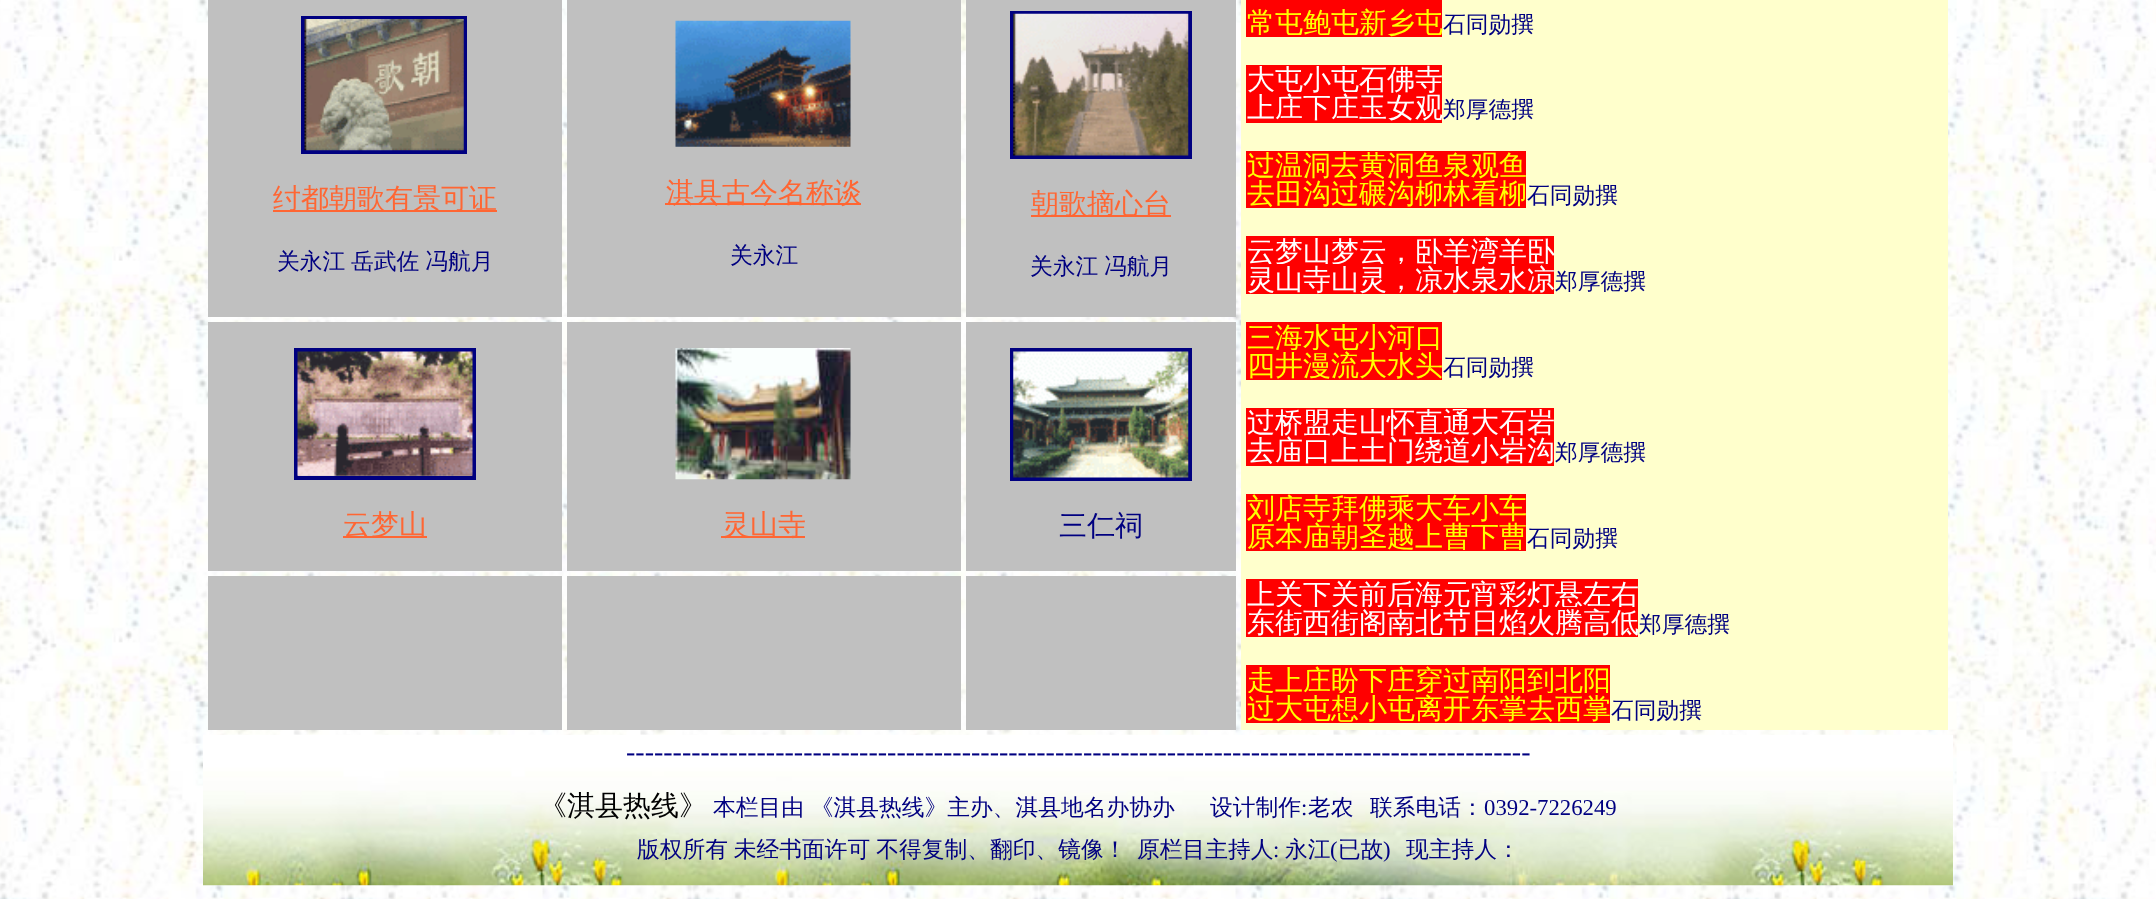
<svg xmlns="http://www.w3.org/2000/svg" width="2156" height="899">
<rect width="100%" height="100%" fill="#fff"/>
<image x="0" y="0" width="2156" height="899" href="media/1.png"/>
<rect x="208" width="354" height="317" fill="#c0c0c0"/>
<rect x="303" y="18" width="162" height="134" fill="none" stroke="#000080" stroke-width="4"/>
<image x="304" y="19" width="160" height="132" href="media/2.png"/>
<rect x="273" y="210" width="224" height="2" fill="#f63"/>
<text x="273" y="208" style="font-family:WenQuanYi Zen Hei;font-size:28px;font-weight:500;fill:#f63">纣都朝歌有景可证</text>
<text x="277" y="269" word-spacing="-1" style="font-family:WenQuanYi Zen Hei;font-size:22.75px;font-weight:500;fill:#000080">关永江 岳武佐 冯航月</text>
<rect x="567" width="394" height="317" fill="#c0c0c0"/>
<image x="675" y="20" width="176" height="127" href="media/3.png"/>
<rect x="665" y="203" width="196" height="2" fill="#f63"/>
<text x="666" y="202" style="font-family:WenQuanYi Zen Hei;font-size:28px;font-weight:500;fill:#f63">淇县古今名称谈</text>
<text x="730" y="263" style="font-family:WenQuanYi Zen Hei;font-size:22.75px;font-weight:500;fill:#000080">关永江</text>
<rect x="966" width="270" height="317" fill="#c0c0c0"/>
<rect x="1012" y="13" width="178" height="144" fill="none" stroke="#000080" stroke-width="4"/>
<image x="1013" y="13" width="176" height="143" href="media/4.png"/>
<rect x="1031" y="215" width="140" height="2" fill="#f63"/>
<text x="1031" y="213" style="font-family:WenQuanYi Zen Hei;font-size:28px;font-weight:500;fill:#f63">朝歌摘心台</text>
<text x="1030" y="274" word-spacing="-1" style="font-family:WenQuanYi Zen Hei;font-size:22.75px;font-weight:500;fill:#000080">关永江 冯航月</text>
<rect x="1241" width="707" height="730" fill="#ffc"/>
<rect x="1246" width="196" height="37" fill="#f00"/>
<text x="1247" y="32" style="font-family:WenQuanYi Zen Hei;font-size:28px;font-weight:500;fill:#ff0">常屯鲍屯新乡屯</text>
<text x="1443" y="32" style="font-family:WenQuanYi Zen Hei;font-size:22.75px;font-weight:500;fill:#000080">石同勋撰</text>
<rect x="1246" y="65" width="196" height="28" fill="#f00"/>
<text x="1247" y="89" style="font-family:WenQuanYi Zen Hei;font-size:28px;font-weight:500;fill:#fff">大屯小屯石佛寺</text>
<rect x="1246" y="93" width="196" height="30" fill="#f00"/>
<text x="1247" y="117" style="font-family:WenQuanYi Zen Hei;font-size:28px;font-weight:500;fill:#fff">上庄下庄玉女观</text>
<text x="1443" y="117" style="font-family:WenQuanYi Zen Hei;font-size:22.75px;font-weight:500;fill:#000080">郑厚德撰</text>
<rect x="1246" y="151" width="280" height="28" fill="#f00"/>
<text x="1247" y="175" style="font-family:WenQuanYi Zen Hei;font-size:28px;font-weight:500;fill:#ff0">过温洞去黄洞鱼泉观鱼</text>
<rect x="1246" y="179" width="280" height="29" fill="#f00"/>
<text x="1247" y="203" style="font-family:WenQuanYi Zen Hei;font-size:28px;font-weight:500;fill:#ff0">去田沟过碾沟柳林看柳</text>
<text x="1527" y="203" style="font-family:WenQuanYi Zen Hei;font-size:22.75px;font-weight:500;fill:#000080">石同勋撰</text>
<rect x="1246" y="236" width="308" height="28" fill="#f00"/>
<text x="1247" y="261" style="font-family:WenQuanYi Zen Hei;font-size:28px;font-weight:500;fill:#fff">云梦山梦云，卧羊湾羊卧</text>
<rect x="1246" y="264" width="308" height="30" fill="#f00"/>
<text x="1247" y="289" style="font-family:WenQuanYi Zen Hei;font-size:28px;font-weight:500;fill:#fff">灵山寺山灵，凉水泉水凉</text>
<text x="1555" y="289" style="font-family:WenQuanYi Zen Hei;font-size:22.75px;font-weight:500;fill:#000080">郑厚德撰</text>
<rect x="1246" y="322" width="196" height="28" fill="#f00"/>
<text x="1247" y="347" style="font-family:WenQuanYi Zen Hei;font-size:28px;font-weight:500;fill:#ff0">三海水屯小河口</text>
<rect x="1246" y="350" width="196" height="30" fill="#f00"/>
<text x="1247" y="375" style="font-family:WenQuanYi Zen Hei;font-size:28px;font-weight:500;fill:#ff0">四井漫流大水头</text>
<text x="1443" y="375" style="font-family:WenQuanYi Zen Hei;font-size:22.75px;font-weight:500;fill:#000080">石同勋撰</text>
<rect x="1246" y="408" width="308" height="58" fill="#f00"/>
<text x="1247" y="432" style="font-family:WenQuanYi Zen Hei;font-size:28px;font-weight:500;fill:#fff">过桥盟走山怀直通大石岩</text>
<text x="1247" y="460" style="font-family:WenQuanYi Zen Hei;font-size:28px;font-weight:500;fill:#fff">去庙口上土门绕道小岩沟</text>
<text x="1555" y="460" style="font-family:WenQuanYi Zen Hei;font-size:22.75px;font-weight:500;fill:#000080">郑厚德撰</text>
<rect x="1246" y="494" width="280" height="28" fill="#f00"/>
<text x="1247" y="518" style="font-family:WenQuanYi Zen Hei;font-size:28px;font-weight:500;fill:#ff0">刘店寺拜佛乘大车小车</text>
<rect x="1246" y="522" width="280" height="29" fill="#f00"/>
<text x="1247" y="546" style="font-family:WenQuanYi Zen Hei;font-size:28px;font-weight:500;fill:#ff0">原本庙朝圣越上曹下曹</text>
<text x="1527" y="546" style="font-family:WenQuanYi Zen Hei;font-size:22.75px;font-weight:500;fill:#000080">石同勋撰</text>
<rect x="1246" y="579" width="392" height="28" fill="#f00"/>
<text x="1247" y="604" style="font-family:WenQuanYi Zen Hei;font-size:28px;font-weight:500;fill:#fff">上关下关前后海元宵彩灯悬左右</text>
<rect x="1246" y="607" width="392" height="30" fill="#f00"/>
<text x="1247" y="632" style="font-family:WenQuanYi Zen Hei;font-size:28px;font-weight:500;fill:#fff">东街西街阁南北节日焰火腾高低</text>
<text x="1639" y="632" style="font-family:WenQuanYi Zen Hei;font-size:22.75px;font-weight:500;fill:#000080">郑厚德撰</text>
<rect x="1246" y="665" width="364" height="28" fill="#f00"/>
<text x="1247" y="690" style="font-family:WenQuanYi Zen Hei;font-size:28px;font-weight:500;fill:#ff0">走上庄盼下庄穿过南阳到北阳</text>
<rect x="1246" y="693" width="364" height="30" fill="#f00"/>
<text x="1247" y="718" style="font-family:WenQuanYi Zen Hei;font-size:28px;font-weight:500;fill:#ff0">过大屯想小屯离开东掌去西掌</text>
<text x="1611" y="718" style="font-family:WenQuanYi Zen Hei;font-size:22.75px;font-weight:500;fill:#000080">石同勋撰</text>
<rect x="208" y="322" width="354" height="249" fill="#c0c0c0"/>
<rect x="296" y="350" width="178" height="128" fill="none" stroke="#000080" stroke-width="4"/>
<image x="297" y="351" width="176" height="125" href="media/5.png"/>
<rect x="343" y="536" width="84" height="2" fill="#f63"/>
<text x="343" y="534" style="font-family:WenQuanYi Zen Hei;font-size:28px;font-weight:500;fill:#f63">云梦山</text>
<rect x="567" y="322" width="394" height="249" fill="#c0c0c0"/>
<image x="675" y="348" width="176" height="132" href="media/6.png"/>
<rect x="721" y="536" width="84" height="2" fill="#f63"/>
<text x="722" y="534" style="font-family:WenQuanYi Zen Hei;font-size:28px;font-weight:500;fill:#f63">灵山寺</text>
<rect x="966" y="322" width="270" height="249" fill="#c0c0c0"/>
<rect x="1012" y="350" width="178" height="129" fill="none" stroke="#000080" stroke-width="4"/>
<image x="1013" y="351" width="176" height="127" href="media/7.png"/>
<text x="1059" y="535" style="font-family:WenQuanYi Zen Hei;font-size:28px;font-weight:500;fill:#000080">三仁祠</text>
<rect x="208" y="576" width="354" height="154" fill="#c0c0c0"/>
<rect x="567" y="576" width="394" height="154" fill="#c0c0c0"/>
<rect x="966" y="576" width="270" height="154" fill="#c0c0c0"/>
<image x="203" y="734" width="1750" height="152" href="media/8.png"/>
<text x="626" y="761" style="font-family:Liberation Serif;font-size:28px;fill:#000080">-------------------------------------------------------------------------------------------------</text>
<text x="539" y="815" style="font-family:WenQuanYi Zen Hei;font-size:28px;font-weight:500;fill:#000">《淇县热线》</text>
<text x="713" y="815" style="font-family:WenQuanYi Zen Hei;font-size:22.75px;font-weight:500;fill:#000080">本栏目由 《淇县热线》主办、淇县地名办协办</text>
<text x="1210" y="815" style="font-family:WenQuanYi Zen Hei;font-size:22.75px;font-weight:500;fill:#000080">设计制作</text>
<text x="1301" y="815" style="font-family:Liberation Serif;font-size:22.75px;fill:#000080">:</text>
<text x="1308" y="815" style="font-family:WenQuanYi Zen Hei;font-size:22.75px;font-weight:500;fill:#000080">老农</text>
<text x="1370" y="815" style="font-family:WenQuanYi Zen Hei;font-size:22.75px;font-weight:500;fill:#000080">联系电话：</text>
<text x="1484" y="815" style="font-family:Liberation Serif;font-size:22.75px;fill:#000080">0392-7226249</text>
<text x="637" y="857" word-spacing="-1" style="font-family:WenQuanYi Zen Hei;font-size:22.75px;font-weight:500;fill:#000080">版权所有 未经书面许可 不得复制、翻印、镜像！</text>
<text x="1137" y="857" style="font-family:WenQuanYi Zen Hei;font-size:22.75px;font-weight:500;fill:#000080">原栏目主持人</text>
<text x="1273" y="857" style="font-family:Liberation Serif;font-size:22.75px;fill:#000080">:</text>
<text x="1285" y="857" style="font-family:WenQuanYi Zen Hei;font-size:22.75px;font-weight:500;fill:#000080">永江</text>
<text x="1330" y="857" style="font-family:Liberation Serif;font-size:22.75px;fill:#000080">(</text>
<text x="1338" y="857" style="font-family:WenQuanYi Zen Hei;font-size:22.75px;font-weight:500;fill:#000080">已故</text>
<text x="1383" y="857" style="font-family:Liberation Serif;font-size:22.75px;fill:#000080">)</text>
<text x="1406" y="857" style="font-family:WenQuanYi Zen Hei;font-size:22.75px;font-weight:500;fill:#000080">现主持人：</text>
</svg>
